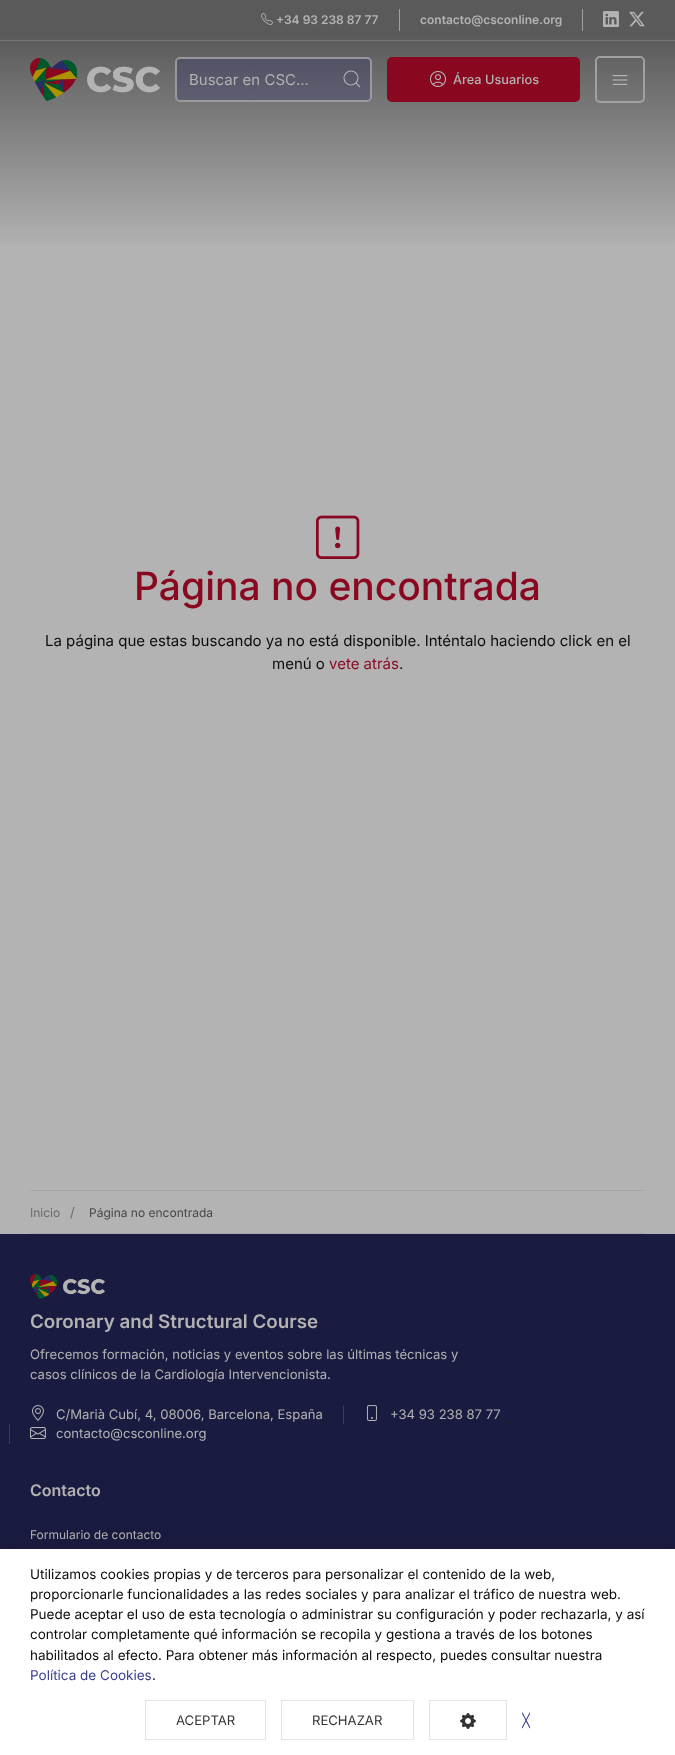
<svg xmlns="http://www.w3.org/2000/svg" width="675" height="1755">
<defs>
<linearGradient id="g1" gradientUnits="userSpaceOnUse" x1="338" y1="0" x2="338" y2="250"><stop offset="0" stop-color="#5a5a5a"/><stop offset="0.14" stop-color="#5a5a5a"/><stop offset="1" stop-color="#b3b3b3"/></linearGradient>
<clipPath id="clip1"><rect x="522" y="1710" width="8" height="20"/></clipPath>
</defs>
<rect width="100%" height="100%" fill="#b3b3b3"/>
<rect width="675" height="244" fill="url(#g1)"/>
<rect y="40" width="675" height="1" fill="#767676"/>
<image x="261" y="13" width="12" height="12" href="media/1.png"/>
<text x="276" y="24" style="font-family:Inter;font-size:12px;font-weight:600;fill:#b3b3b3">+34 93 238 87 77</text>
<rect x="399" y="9" width="1" height="22" fill="#a0a0a0"/>
<text x="420" y="24" style="font-family:Inter;font-size:12px;font-weight:600;fill:#b3b3b3">contacto@csconline.org</text>
<rect x="582" y="9" width="1" height="22" fill="#a0a0a0"/>
<image x="603" y="11" width="16" height="16" href="media/2.png"/>
<image x="629" y="11" width="16" height="16" href="media/3.png"/>
<image x="30" y="58" width="130" height="43" href="media/4.png"/>
<rect x="175" y="57" width="197" height="45" rx="5" fill="#292c664d"/>
<rect x="176" y="58" width="195" height="43" rx="4" fill="none" stroke="#b3b3b3b3" stroke-width="2"/>
<text x="189" y="85" style="font-family:Inter;font-size:15px;fill:#b3b3b3">Buscar en CSC...</text>
<circle cx="351" cy="78" r="7" fill="none" stroke="#b3b3b3" stroke-width="1.1"/>
<path d="M356 83l4 4z" fill="none" stroke="#b3b3b3" stroke-width="1.1"/>
<rect x="387" y="57" width="193" height="45" rx="5" fill="#89071f"/>
<image x="429" y="71" width="17" height="16" href="media/5.png"/>
<text x="453" y="84" style="font-family:Inter;font-size:12.75px;font-weight:500;fill:#b3b3b3">Área Usuarios</text>
<rect x="596" y="57" width="48" height="45" rx="4" fill="none" stroke="#a0a0a0" stroke-width="2"/>
<image x="612" y="75" width="16" height="10" href="media/6.png"/>
<image x="316" y="515" width="44" height="44" href="media/7.png"/>
<text x="134" y="600" style="font-family:Inter;font-size:39px;font-weight:500;fill:#89071f">Página no encontrada</text>
<text x="45" y="646" style="font-family:Inter;font-size:15px;fill:#0c0c0c">La página que estas buscando ya no está disponible. Inténtalo haciendo click en el</text>
<text x="272" y="669" style="font-family:Inter;font-size:15px;fill:#0c0c0c">menú o</text>
<text x="329" y="669" style="font-family:Inter;font-size:15px;fill:#89071f">vete atrás</text>
<text x="399" y="669" style="font-family:Inter;font-size:15px;fill:#0c0c0c">.</text>
<rect x="30" y="1190" width="615" height="1" fill="#a7a7a7"/>
<rect x="30" y="1233" width="615" height="1" fill="#a7a7a7"/>
<text x="30" y="1217" style="font-family:Inter;font-size:12px;fill:#6b6b6b">Inicio</text>
<text x="70" y="1217" style="font-family:Inter;font-size:13.1px;fill:#6b6b6b">/</text>
<text x="89" y="1217" style="font-family:Inter;font-size:12px;fill:#474747">Página no encontrada</text>
<rect y="1234" width="675" height="315" fill="#1a1b40"/>
<image x="30" y="1274" width="75" height="25" href="media/8.png"/>
<text x="30" y="1328" style="font-family:Inter;font-size:18.75px;font-weight:600;fill:#b3b3b3">Coronary and Structural Course</text>
<text x="30" y="1359" style="font-family:Inter;font-size:13.1px;fill:#b3b3b3">Ofrecemos formación, noticias y eventos sobre las últimas técnicas y</text>
<text x="30" y="1379" style="font-family:Inter;font-size:13.1px;fill:#b3b3b3">casos clínicos de la Cardiología Intervencionista.</text>
<image x="32" y="1405" width="12" height="16" href="media/9.png"/>
<text x="56" y="1419" style="font-family:Inter;font-size:13.1px;fill:#b3b3b3">C/Marià Cubí, 4, 08006, Barcelona, España</text>
<rect x="343" y="1405" width="1" height="19" fill="#393958"/>
<image x="366" y="1405" width="11" height="16" href="media/10.png"/>
<text x="390" y="1419" style="font-family:Inter;font-size:13.1px;fill:#b3b3b3">+34 93 238 87 77</text>
<rect x="9" y="1424" width="1" height="20" fill="#393958"/>
<image x="30" y="1427" width="16" height="12" href="media/11.png"/>
<text x="56" y="1438" style="font-family:Inter;font-size:13.1px;fill:#b3b3b3">contacto@csconline.org</text>
<text x="30" y="1496" style="font-family:Inter;font-size:16px;font-weight:600;fill:#b3b3b3">Contacto</text>
<text x="30" y="1539" style="font-family:Inter;font-size:12px;fill:#b3b3b3">Formulario de contacto</text>
<rect y="1544" width="675" height="206" fill="#00000012" filter="blur(10px)"/>
<rect y="1549" width="675" height="206" fill="#fff"/>
<text x="30" y="1579" style="font-family:Inter;font-size:13.5px;fill:#0c0c0c">Utilizamos cookies propias y de terceros para personalizar el contenido de la web,</text>
<text x="30" y="1599" style="font-family:Inter;font-size:13.5px;fill:#0c0c0c">proporcionarle funcionalidades a las redes sociales y para analizar el tráfico de nuestra web.</text>
<text x="30" y="1619" style="font-family:Inter;font-size:13.5px;fill:#0c0c0c">Puede aceptar el uso de esta tecnología o administrar su configuración y poder rechazarla, y así</text>
<text x="30" y="1639" style="font-family:Inter;font-size:13.5px;fill:#0c0c0c">controlar completamente qué información se recopila y gestiona a través de los botones</text>
<text x="30" y="1660" style="font-family:Inter;font-size:13.5px;fill:#0c0c0c">habilitados al efecto. Para obtener más información al respecto, puedes consultar nuestra</text>
<text x="30" y="1680" style="font-family:Inter;font-size:13.5px;fill:#3b3f92">Política de Cookies</text>
<text x="152" y="1680" style="font-family:Inter;font-size:13.5px;fill:#0c0c0c">.</text>
<rect x="145.5" y="1700.5" width="120" height="39" fill="none" stroke="#e5e5e5"/>
<text x="176" y="1725" style="font-family:Inter;font-size:13.1px;fill:#333">ACEPTAR</text>
<rect x="281.5" y="1700.5" width="132" height="39" fill="none" stroke="#e5e5e5"/>
<text x="312" y="1725" style="font-family:Inter;font-size:13.1px;fill:#333">RECHAZAR</text>
<rect x="429.5" y="1700.5" width="77" height="39" fill="none" stroke="#e5e5e5"/>
<image x="460" y="1713" width="16" height="16" href="media/12.png"/>
<g clip-path="url(#clip1)">
<text x="522" y="1725" style="font-family:DejaVu Sans;font-size:13.5px;fill:#3b3f92">╳</text>
</g>
</svg>
